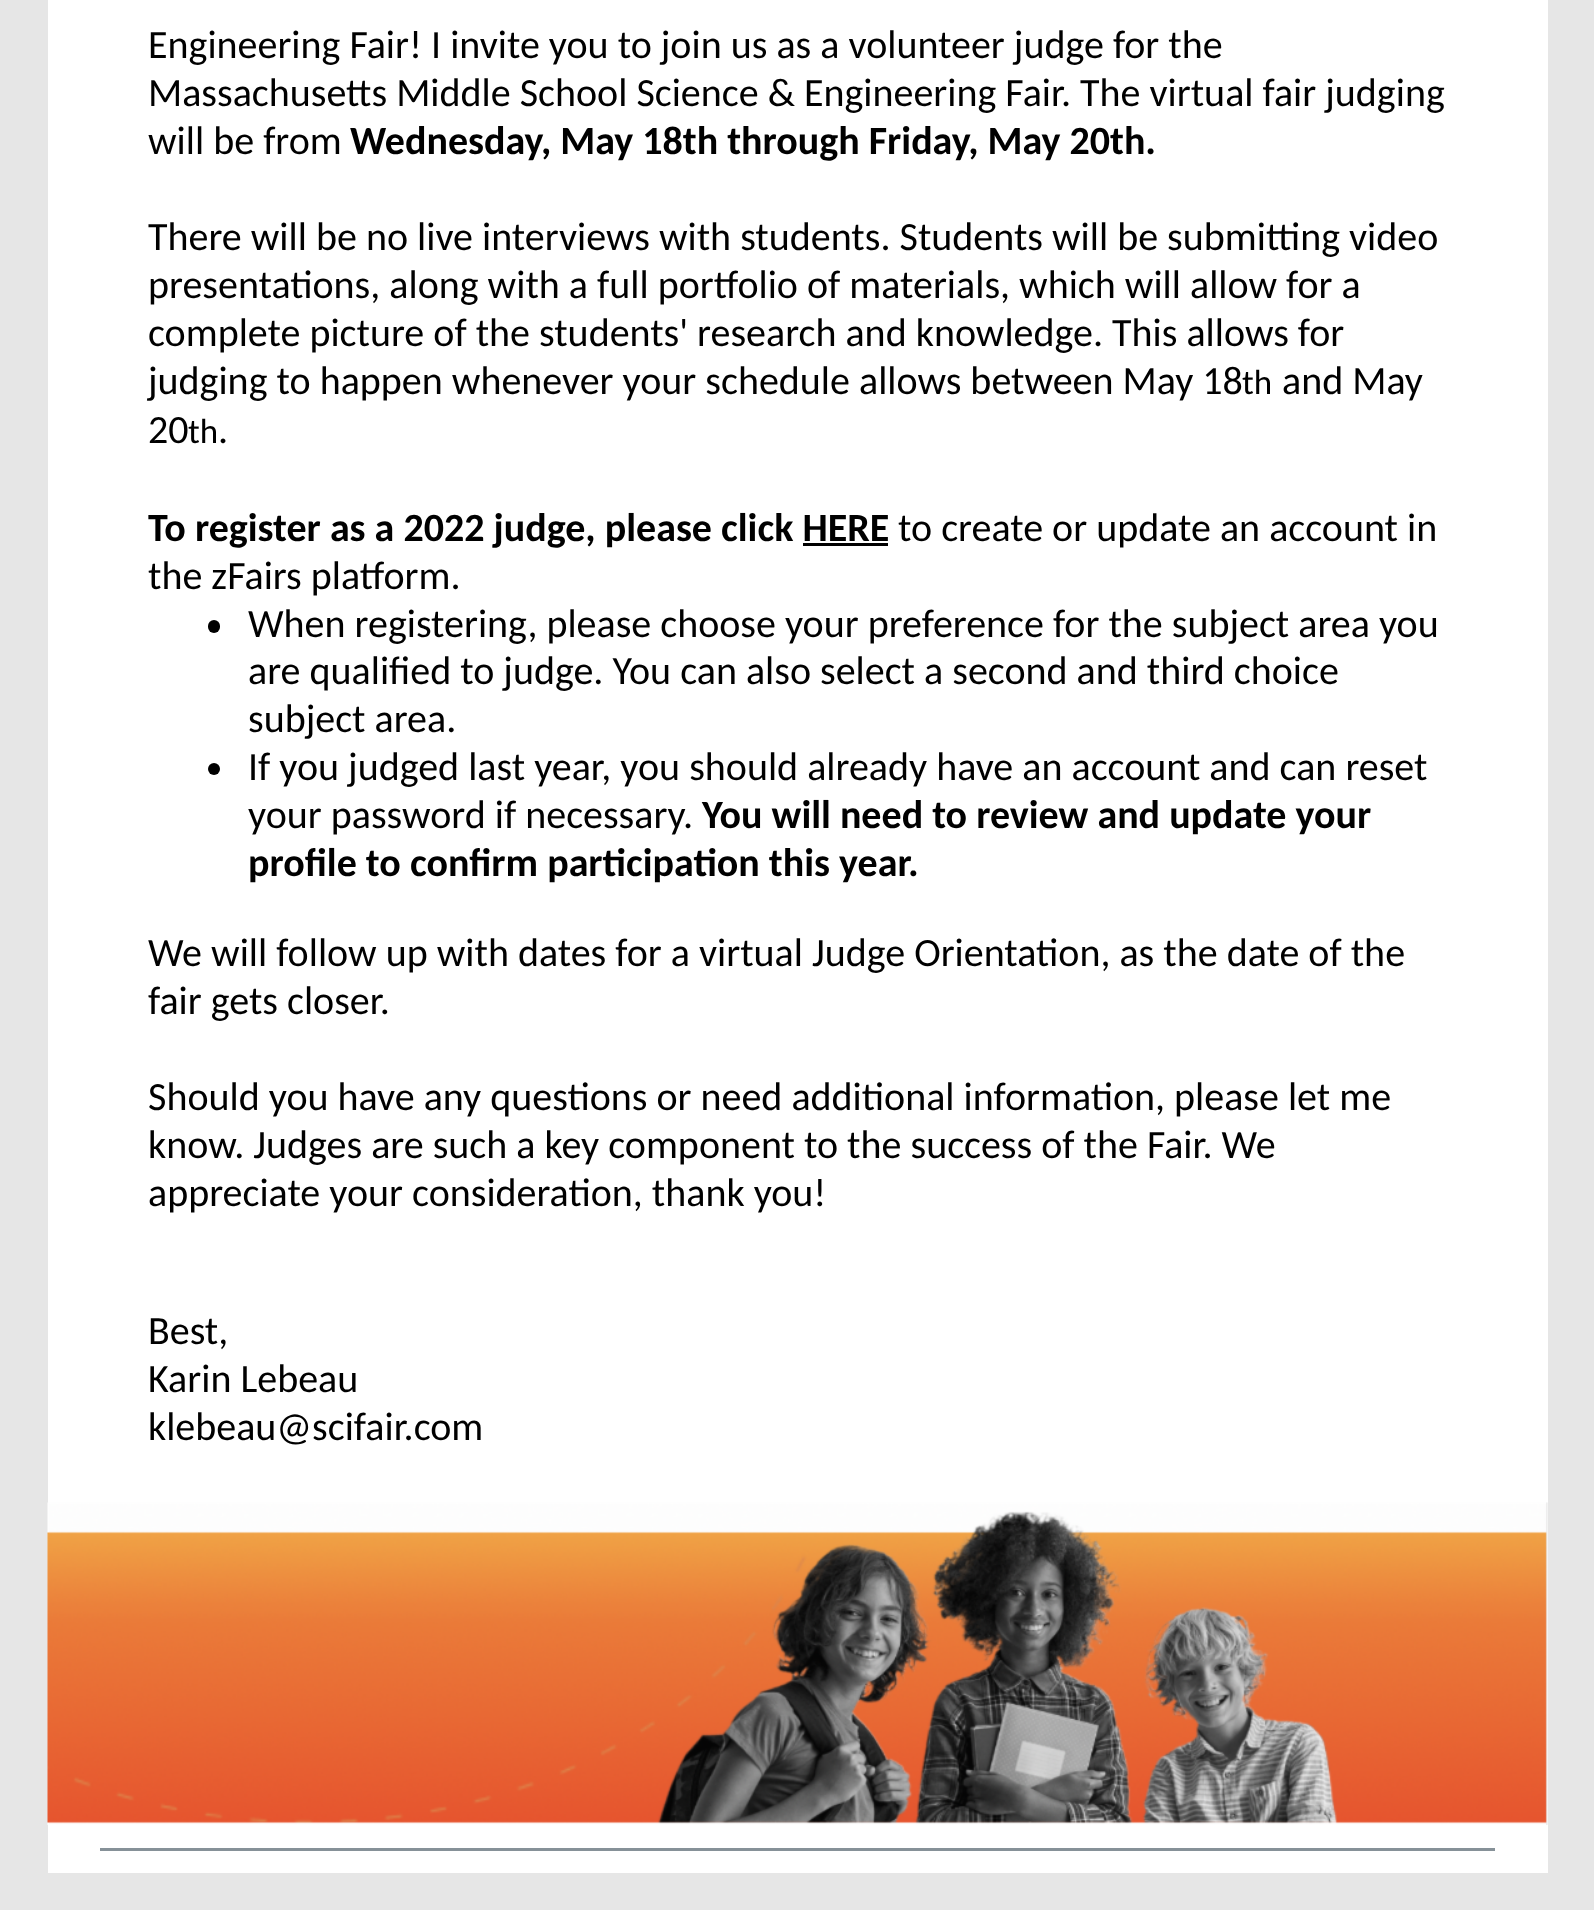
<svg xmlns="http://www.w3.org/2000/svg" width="1594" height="1910">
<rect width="100%" height="100%" fill="#e6e6e6"/>
<rect x="48" width="1500" height="1873" fill="#fff"/>
<text x="148" y="58" style="font-family:Carlito;font-size:40px;fill:#000">Engineering Fair! I invite you to join us as a volunteer judge for the</text>
<text x="148" y="106" style="font-family:Carlito;font-size:40px;fill:#000">Massachusetts Middle School Science &amp; Engineering Fair. The virtual fair judging</text>
<text x="148" y="154" style="font-family:Carlito;font-size:40px;fill:#000">will be from</text>
<text x="350" y="154" style="font-family:Carlito;font-size:40px;font-weight:bold;fill:#000">Wednesday, May 18th through Friday, May 20th.</text>
<text x="148" y="250" style="font-family:Carlito;font-size:40px;fill:#000">There will be no live interviews with students. Students will be submitting video</text>
<text x="148" y="298" style="font-family:Carlito;font-size:40px;fill:#000">presentations, along with a full portfolio of materials, which will allow for a</text>
<text x="148" y="346" style="font-family:Carlito;font-size:40px;fill:#000">complete picture of the students' research and knowledge. This allows for</text>
<text x="148" y="394" style="font-family:Carlito;font-size:40px;fill:#000">judging to happen whenever your schedule allows between May 18</text>
<text x="1242" y="394" style="font-family:Carlito;font-size:35px;fill:#000">th</text>
<text x="1282" y="394" style="font-family:Carlito;font-size:40px;fill:#000">and May</text>
<text x="148" y="443" style="font-family:Carlito;font-size:40px;fill:#000">20</text>
<text x="188" y="443" style="font-family:Carlito;font-size:35px;fill:#000">th</text>
<text x="218" y="443" style="font-family:Carlito;font-size:40px;fill:#000">.</text>
<text x="148" y="541" style="font-family:Carlito;font-size:40px;font-weight:bold;fill:#000">To register as a 2022 judge, please click HERE</text>
<text x="898" y="541" style="font-family:Carlito;font-size:40px;fill:#000">to create or update an account in</text>
<rect x="803" y="543" width="85" height="3" fill="#000"/>
<text x="148" y="589" style="font-family:Carlito;font-size:40px;fill:#000">the zFairs platform.</text>
<rect x="208" y="620" width="12" height="13" rx="6" fill="#000"/>
<text x="248" y="637" style="font-family:Carlito;font-size:40px;fill:#000">When registering, please choose your preference for the subject area you</text>
<text x="248" y="684" style="font-family:Carlito;font-size:40px;fill:#000">are qualified to judge. You can also select a second and third choice</text>
<text x="248" y="732" style="font-family:Carlito;font-size:40px;fill:#000">subject area.</text>
<circle cx="214" cy="769" r="6" fill="#000"/>
<text x="248" y="780" style="font-family:Carlito;font-size:40px;fill:#000">If you judged last year, you should already have an account and can reset</text>
<text x="248" y="828" style="font-family:Carlito;font-size:40px;fill:#000">your password if necessary.</text>
<text x="702" y="828" style="font-family:Carlito;font-size:40px;font-weight:bold;fill:#000">You will need to review and update your</text>
<text x="248" y="876" style="font-family:Carlito;font-size:40px;font-weight:bold;fill:#000">profile to confirm participation this year.</text>
<text x="148" y="966" style="font-family:Carlito;font-size:40px;fill:#000">We will follow up with dates for a virtual Judge Orientation, as the date of the</text>
<text x="148" y="1014" style="font-family:Carlito;font-size:40px;fill:#000">fair gets closer.</text>
<text x="148" y="1110" style="font-family:Carlito;font-size:40px;fill:#000">Should you have any questions or need additional information, please let me</text>
<text x="148" y="1158" style="font-family:Carlito;font-size:40px;fill:#000">know. Judges are such a key component to the success of the Fair. We</text>
<text x="148" y="1206" style="font-family:Carlito;font-size:40px;fill:#000">appreciate your consideration, thank you!</text>
<text x="148" y="1344" style="font-family:Carlito;font-size:40px;fill:#000">Best,</text>
<text x="148" y="1392" style="font-family:Carlito;font-size:40px;fill:#000">Karin Lebeau</text>
<text x="148" y="1440" style="font-family:Carlito;font-size:40px;fill:#000">klebeau@scifair.com</text>
<image x="47" y="1502" width="1501" height="323" href="media/1.png"/>
<rect x="100" y="1848" width="1395" height="3" fill="#869198"/>
</svg>
